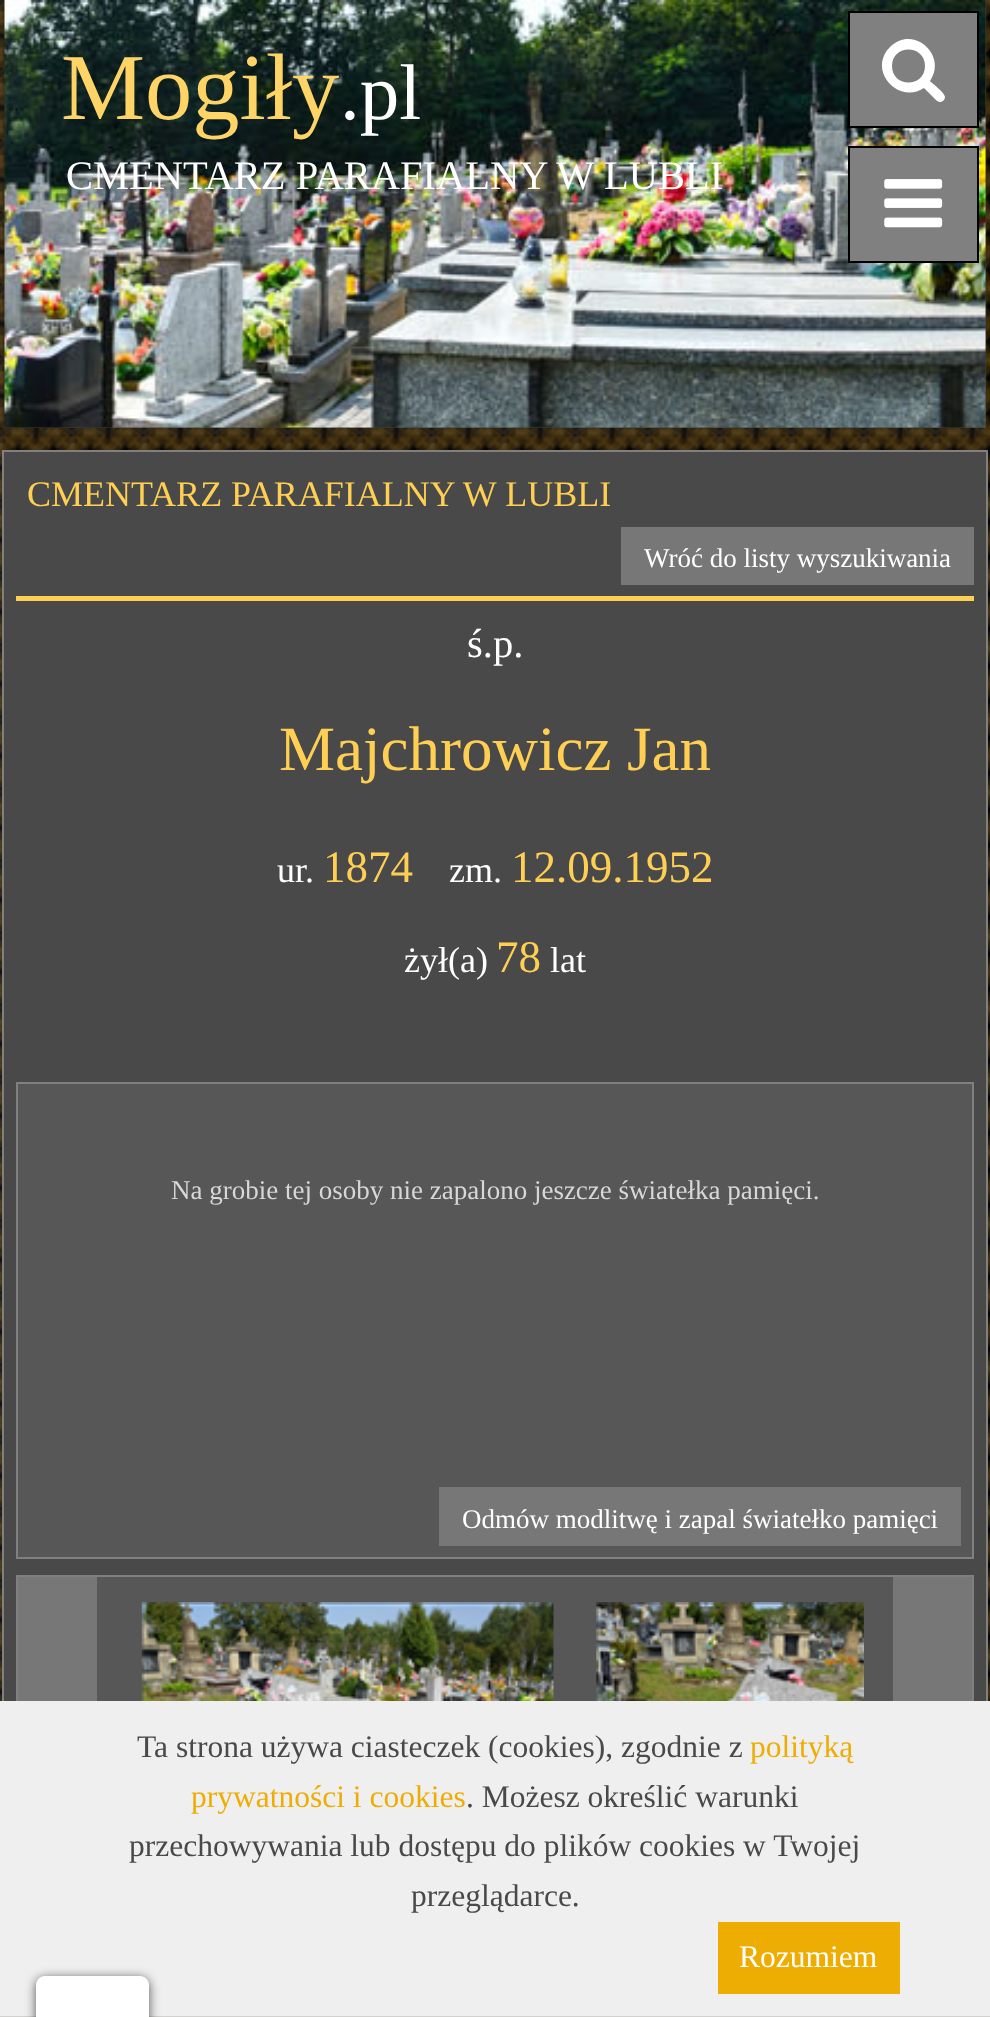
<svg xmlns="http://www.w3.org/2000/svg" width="990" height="2017">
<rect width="100%" height="100%" fill="#fff"/>
<image x="0" y="0" width="990" height="1701" href="media/1.png"/>
<rect x="5" width="981" height="428" fill="#3d3d3d"/>
<image x="4" y="0" width="982" height="428" href="media/2.png"/>
<text x="61" y="119" style="font-family:Liberation Serif;font-size:94.5px;fill:#ffd467">Mogiły</text>
<text x="340" y="119" style="font-family:Liberation Serif;font-size:79px;fill:#fff">.pl</text>
<text x="66" y="189" style="font-family:Liberation Serif;font-size:40.5px;fill:#fff">CMENTARZ PARAFIALNY W LUBLI</text>
<rect x="849" y="12" width="129" height="115" fill="#808080" stroke="#000" stroke-width="2"/>
<path d="M925 66c0 22-33 22-33 0c0-22 33-22 33 0zm20 31c0-4-12-13-15-16c18-26-17-57-40-34c-23 23 8 58 34 41l12 12c1 1 3 2 4 2c2 0 5-2 5-5z" fill="#fff"/>
<rect x="849" y="147" width="129" height="115" fill="#808080" stroke="#000" stroke-width="2"/>
<image x="884" y="179" width="59" height="49" href="media/3.png"/>
<rect x="4" y="452" width="982" height="1249" fill="#494949"/>
<rect x="3" y="451" width="984" height="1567" fill="none" stroke="#808080" stroke-width="2"/>
<rect x="16" y="596" width="958" height="5" fill="#fecf52"/>
<text x="27" y="506" style="font-family:Liberation Serif;font-size:36px;fill:#fecf52">CMENTARZ PARAFIALNY W LUBLI</text>
<rect x="621" y="527" width="353" height="58" fill="#777"/>
<text x="644" y="567" style="font-family:Liberation Serif;font-size:27px;fill:#fff">Wróć do listy wyszukiwania</text>
<text x="467" y="657" style="font-family:Liberation Serif;font-size:40.5px;fill:#fff">ś.p.</text>
<text x="279" y="770" style="font-family:Liberation Serif;font-size:63px;fill:#fecf52">Majchrowicz Jan</text>
<text x="277" y="882" style="font-family:Liberation Serif;font-size:36px;fill:#fff">ur.</text>
<text x="323" y="882" style="font-family:Liberation Serif;font-size:45px;fill:#fecf52">1874</text>
<text x="449" y="882" style="font-family:Liberation Serif;font-size:36px;fill:#fff">zm.</text>
<text x="511" y="882" style="font-family:Liberation Serif;font-size:45px;fill:#fecf52">12.09.1952</text>
<text x="404" y="972" style="font-family:Liberation Serif;font-size:36px;fill:#fff">żył(a)</text>
<text x="496" y="972" style="font-family:Liberation Serif;font-size:45px;fill:#fecf52">78</text>
<text x="550" y="972" style="font-family:Liberation Serif;font-size:36px;fill:#fff">lat</text>
<rect x="17" y="1083" width="956" height="475" fill="#575757" stroke="#808080" stroke-width="2"/>
<text x="171" y="1199" style="font-family:Liberation Serif;font-size:27px;fill:#d7d7d7">Na grobie tej osoby nie zapalono jeszcze światełka pamięci.</text>
<rect x="439" y="1487" width="522" height="59" fill="#777"/>
<text x="462" y="1528" style="font-family:Liberation Serif;font-size:27px;fill:#fff">Odmów modlitwę i zapal światełko pamięci</text>
<rect x="97" y="1577" width="796" height="124" fill="#575757"/>
<rect x="17" y="1576" width="956" height="336" fill="none" stroke="#808080" stroke-width="2"/>
<rect x="18" y="1577" width="79" height="124" fill="#777"/>
<image x="141" y="1602" width="413" height="99" href="media/4.png"/>
<image x="596" y="1602" width="268" height="99" href="media/5.png"/>
<rect x="893" y="1577" width="79" height="124" fill="#777"/>
<rect y="1701" width="990" height="315" fill="#efefef"/>
<rect y="2016" width="990" height="1" fill="#d3d0d0"/>
<rect x="36" y="1978" width="113" height="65" rx="9" fill="#000000a6" filter="blur(5.5px)"/>
<path d="M45 1976h95c5 0 9 4 9 9v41h-113v-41c0-5 4-9 9-9z" fill="#fff"/>
<text x="137" y="1757" style="font-family:Liberation Serif;font-size:31.5px;fill:#494949">Ta strona używa ciasteczek (cookies), zgodnie z</text>
<text x="750" y="1757" style="font-family:Liberation Serif;font-size:31.5px;fill:#eead03">polityką</text>
<text x="191" y="1807" style="font-family:Liberation Serif;font-size:31.5px;fill:#eead03">prywatności i cookies</text>
<text x="466" y="1807" style="font-family:Liberation Serif;font-size:31.5px;fill:#494949">. Możesz określić warunki</text>
<text x="129" y="1856" style="font-family:Liberation Serif;font-size:31.5px;fill:#494949">przechowywania lub dostępu do plików cookies w Twojej</text>
<text x="411" y="1906" style="font-family:Liberation Serif;font-size:31.5px;fill:#494949">przeglądarce.</text>
<rect x="718" y="1922" width="182" height="72" fill="#eead03"/>
<text x="739" y="1967" style="font-family:Liberation Serif;font-size:31.5px;fill:#fff">Rozumiem</text>
</svg>
